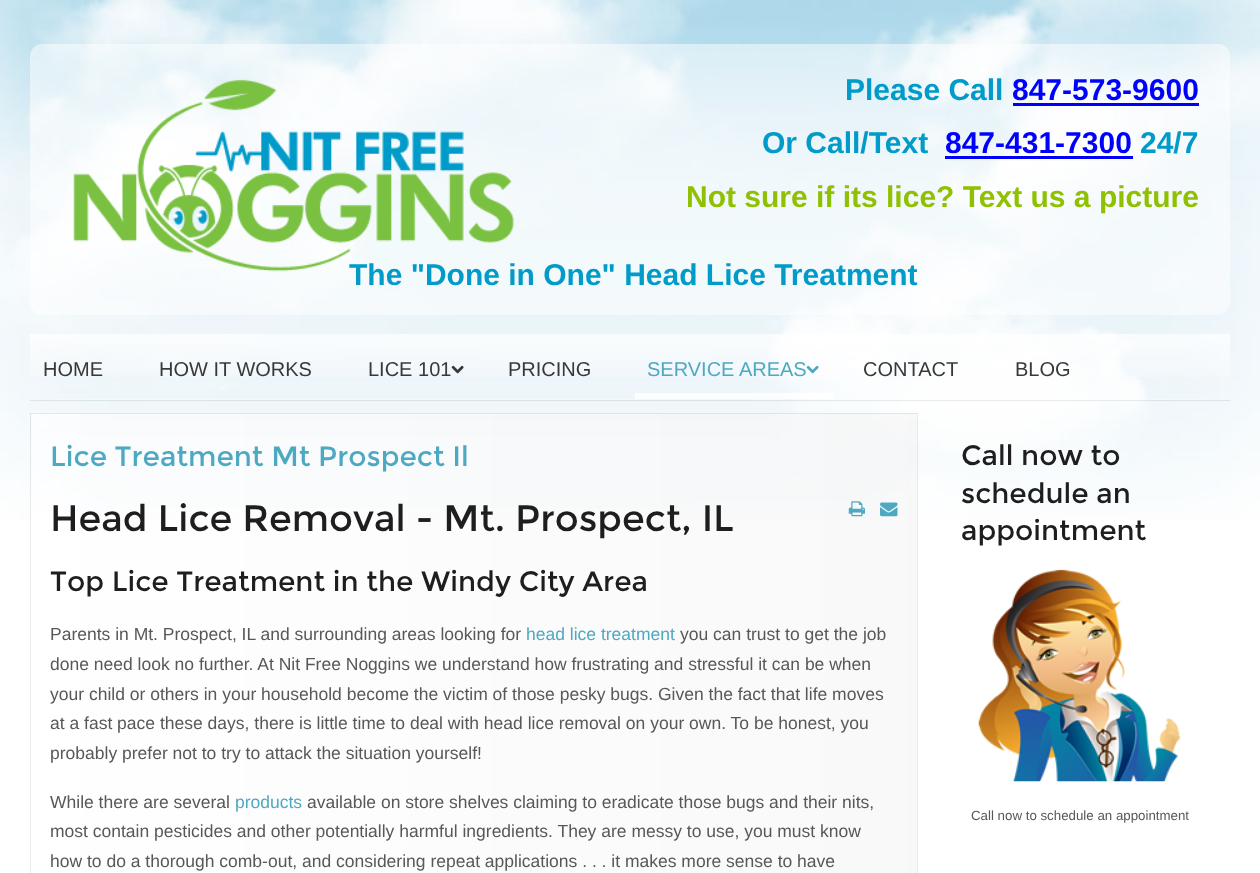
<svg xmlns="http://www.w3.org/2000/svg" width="1260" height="873">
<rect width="100%" height="100%" fill="#fff"/>
<image x="0" y="0" width="1260" height="520" href="media/1.png"/>
<image x="30" y="44" width="1200" height="271" href="media/2.png"/>
<image x="73" y="79" width="441" height="193" href="media/3.png"/>
<text x="845" y="100" style="font-family:Liberation Sans;font-size:30px;font-weight:bold;fill:#009bc9">Please Call</text>
<text x="1012" y="100" style="font-family:Liberation Sans;font-size:30px;font-weight:bold;fill:#00f">847-573-9600</text>
<rect x="1013" y="103" width="186" height="3" fill="#00f"/>
<text x="762" y="153" style="font-family:Liberation Sans;font-size:30px;font-weight:bold;fill:#009bc9">Or Call/Text</text>
<text x="945" y="153" style="font-family:Liberation Sans;font-size:30px;font-weight:bold;fill:#00f">847-431-7300</text>
<rect x="945" y="156" width="188" height="3" fill="#00f"/>
<text x="1140" y="153" style="font-family:Liberation Sans;font-size:30px;font-weight:bold;fill:#009bc9">24/7</text>
<text x="686" y="207" style="font-family:Liberation Sans;font-size:30px;font-weight:bold;fill:#90c002">Not sure if its lice? Text us a picture</text>
<text x="349" y="285" style="font-family:Liberation Sans;font-size:30px;font-weight:bold;fill:#009bc9">The "Done in One" Head Lice Treatment</text>
<rect x="30" y="400" width="1200" height="1" fill="#00000014"/>
<image x="30" y="334" width="1200" height="43" href="media/4.png"/>
<rect x="30" y="399" width="1200" height="1" fill="#ffffff4d"/>
<text x="43" y="376" style="font-family:Liberation Sans;font-size:20px;fill:#383838">HOME</text>
<text x="159" y="376" style="font-family:Liberation Sans;font-size:20px;fill:#383838">HOW IT WORKS</text>
<text x="368" y="376" style="font-family:Liberation Sans;font-size:20px;fill:#383838">LICE 101</text>
<image x="451" y="365" width="13" height="9" href="media/5.png"/>
<text x="508" y="376" style="font-family:Liberation Sans;font-size:20px;fill:#383838">PRICING</text>
<rect x="635" y="393" width="198" height="6" fill="#ffffffcc"/>
<text x="647" y="376" style="font-family:Liberation Sans;font-size:20px;fill:#4da9c2">SERVICE AREAS</text>
<image x="806" y="365" width="13" height="9" href="media/6.png"/>
<text x="863" y="376" style="font-family:Liberation Sans;font-size:20px;fill:#383838">CONTACT</text>
<text x="1015" y="376" style="font-family:Liberation Sans;font-size:20px;fill:#383838">BLOG</text>
<image x="31" y="413" width="886" height="460" href="media/7.png"/>
<rect x="30.5" y="413.5" width="887" height="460" fill="none" stroke="#00000014"/>
<text x="50" y="466" style="font-family:Montserrat;font-size:28px;fill:#4da9c2">Lice Treatment Mt Prospect Il</text>
<image x="848" y="501" width="17" height="16" href="media/8.png"/>
<image x="880" y="502" width="18" height="15" href="media/9.png"/>
<text x="50" y="531" style="font-family:Montserrat;font-size:36.75px;fill:#1e1e1e">Head Lice Removal - Mt. Prospect, IL</text>
<text x="50" y="591" style="font-family:Montserrat;font-size:28px;fill:#1e1e1e">Top Lice Treatment in the Windy City Area</text>
<text x="50" y="640" style="font-family:Liberation Sans;font-size:17.5px;fill:#585858">Parents in Mt. Prospect, IL and surrounding areas looking for</text>
<text x="526" y="640" style="font-family:Liberation Sans;font-size:17.5px;fill:#4da9c2">head lice treatment</text>
<text x="680" y="640" style="font-family:Liberation Sans;font-size:17.5px;fill:#585858">you can trust to get the job</text>
<text x="50" y="670" style="font-family:Liberation Sans;font-size:17.5px;fill:#585858">done need look no further. At Nit Free Noggins we understand how frustrating and stressful it can be when</text>
<text x="50" y="700" style="font-family:Liberation Sans;font-size:17.5px;fill:#585858">your child or others in your household become the victim of those pesky bugs. Given the fact that life moves</text>
<text x="50" y="729" style="font-family:Liberation Sans;font-size:17.5px;fill:#585858">at a fast pace these days, there is little time to deal with head lice removal on your own. To be honest, you</text>
<text x="50" y="759" style="font-family:Liberation Sans;font-size:17.5px;fill:#585858">probably prefer not to try to attack the situation yourself!</text>
<text x="50" y="808" style="font-family:Liberation Sans;font-size:17.5px;fill:#585858">While there are several</text>
<text x="235" y="808" style="font-family:Liberation Sans;font-size:17.5px;fill:#4da9c2">products</text>
<text x="307" y="808" style="font-family:Liberation Sans;font-size:17.5px;fill:#585858">available on store shelves claiming to eradicate those bugs and their nits,</text>
<text x="50" y="837" style="font-family:Liberation Sans;font-size:17.5px;fill:#585858">most contain pesticides and other potentially harmful ingredients. They are messy to use, you must know</text>
<text x="50" y="867" style="font-family:Liberation Sans;font-size:17.5px;fill:#585858">how to do a thorough comb-out, and considering repeat applications . . . it makes more sense to have</text>
<text x="961" y="465" style="font-family:Montserrat;font-size:28px;fill:#1e1e1e">Call now to</text>
<text x="961" y="503" style="font-family:Montserrat;font-size:28px;fill:#1e1e1e">schedule an</text>
<text x="961" y="540" style="font-family:Montserrat;font-size:28px;fill:#1e1e1e">appointment</text>
<image x="978" y="569" width="203" height="213" href="media/10.png"/>
<text x="971" y="820" style="font-family:Liberation Sans;font-size:13.3px;fill:#585858">Call now to schedule an appointment</text>
</svg>
